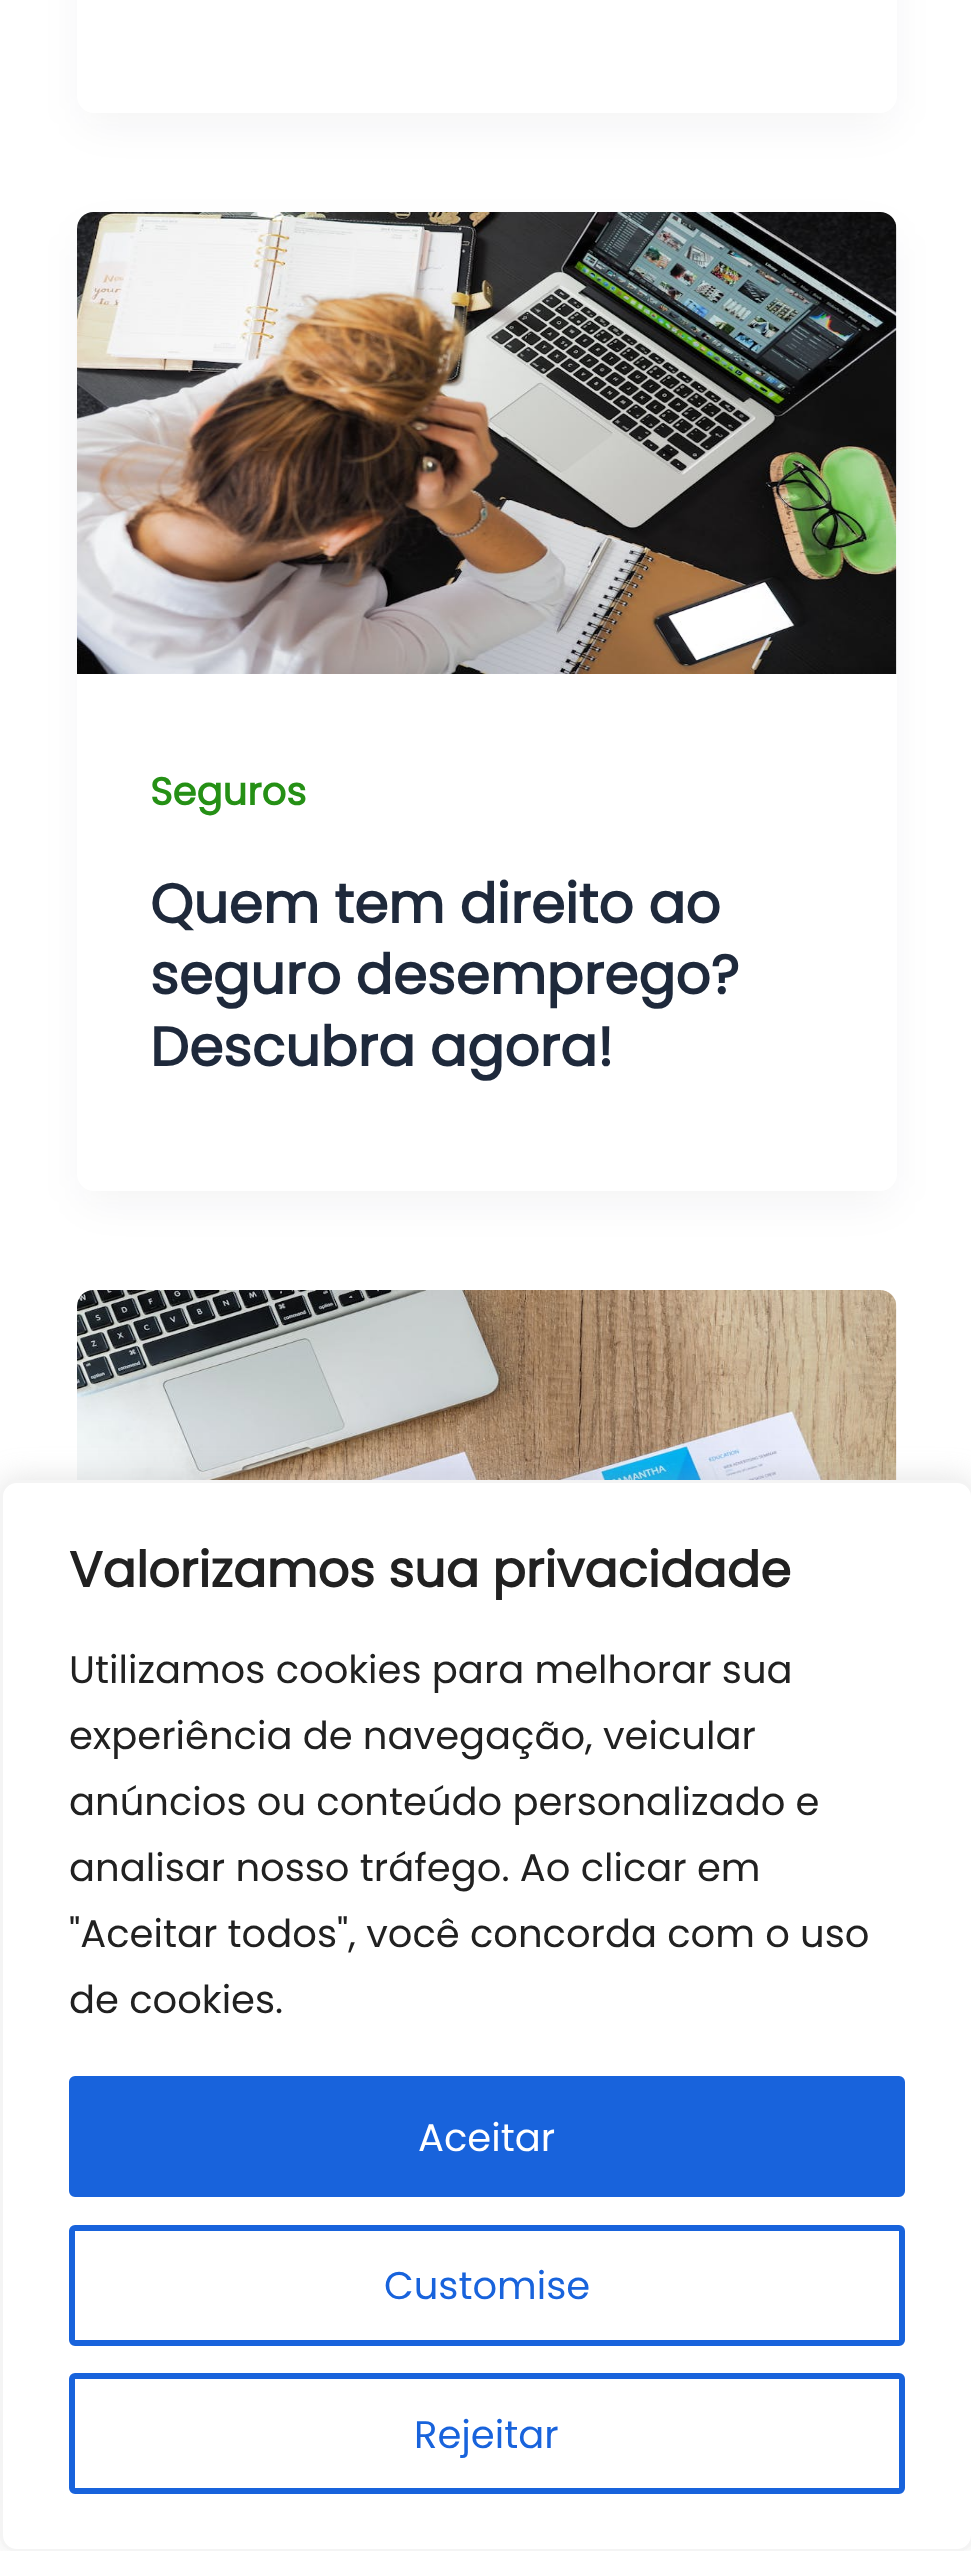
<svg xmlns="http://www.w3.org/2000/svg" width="971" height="2551">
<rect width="100%" height="100%" fill="#fff"/>
<rect x="83" y="-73" width="808" height="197" rx="11" fill="#1018280d" filter="blur(20.5px)"/>
<rect x="77" y="-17" width="820" height="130" rx="17" fill="#fff"/>
<rect x="83" y="234" width="808" height="968" rx="11" fill="#1018280d" filter="blur(20.5px)"/>
<rect x="77" y="212" width="820" height="979" rx="17" fill="#fff"/>
<image x="77" y="212" width="820" height="462" href="media/1.png"/>
<text x="150" y="805" style="font-family:Poppins;font-size:38.5px;font-weight:bold;fill:#259015">Seguros</text>
<text x="150" y="923" style="font-family:Poppins;font-size:55px;font-weight:bold;fill:#1e293b">Quem tem direito ao</text>
<text x="150" y="994" style="font-family:Poppins;font-size:55px;font-weight:bold;fill:#1e293b">seguro desemprego?</text>
<text x="150" y="1066" style="font-family:Poppins;font-size:55px;font-weight:bold;fill:#1e293b">Descubra agora!</text>
<image x="77" y="1290" width="820" height="190" href="media/2.png"/>
<rect y="1477" width="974" height="1072" rx="17" fill="#acabab4d" filter="blur(14px)"/>
<rect x="1.5" y="1481.5" width="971" height="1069" rx="15.5" fill="#fff" stroke="#f4f4f4" stroke-width="3"/>
<text x="69" y="1587" style="font-family:Poppins;font-size:49.5px;font-weight:bold;fill:#212121">Valorizamos sua privacidade</text>
<text x="69" y="1683" style="font-family:Poppins;font-size:38.5px;fill:#212121">Utilizamos cookies para melhorar sua</text>
<text x="69" y="1749" style="font-family:Poppins;font-size:38.5px;fill:#212121">experiência de navegação, veicular</text>
<text x="69" y="1815" style="font-family:Poppins;font-size:38.5px;fill:#212121">anúncios ou conteúdo personalizado e</text>
<text x="69" y="1881" style="font-family:Poppins;font-size:38.5px;fill:#212121">analisar nosso tráfego. Ao clicar em</text>
<text x="69" y="1947" style="font-family:Poppins;font-size:38.5px;fill:#212121">"Aceitar todos", você concorda com o uso</text>
<text x="69" y="2013" style="font-family:Poppins;font-size:38.5px;fill:#212121">de cookies.</text>
<rect x="72" y="2079" width="830" height="115" rx="3" fill="#1863dc" stroke="#1863dc" stroke-width="6"/>
<text x="418" y="2151" style="font-family:Poppins;font-size:38.5px;fill:#fff">Aceitar</text>
<rect x="72" y="2228" width="830" height="115" rx="3" fill="none" stroke="#1863dc" stroke-width="6"/>
<text x="384" y="2299" style="font-family:Poppins;font-size:38.5px;fill:#1863dc">Customise</text>
<rect x="72" y="2376" width="830" height="115" rx="3" fill="none" stroke="#1863dc" stroke-width="6"/>
<text x="414" y="2448" style="font-family:Poppins;font-size:38.5px;fill:#1863dc">Rejeitar</text>
</svg>
